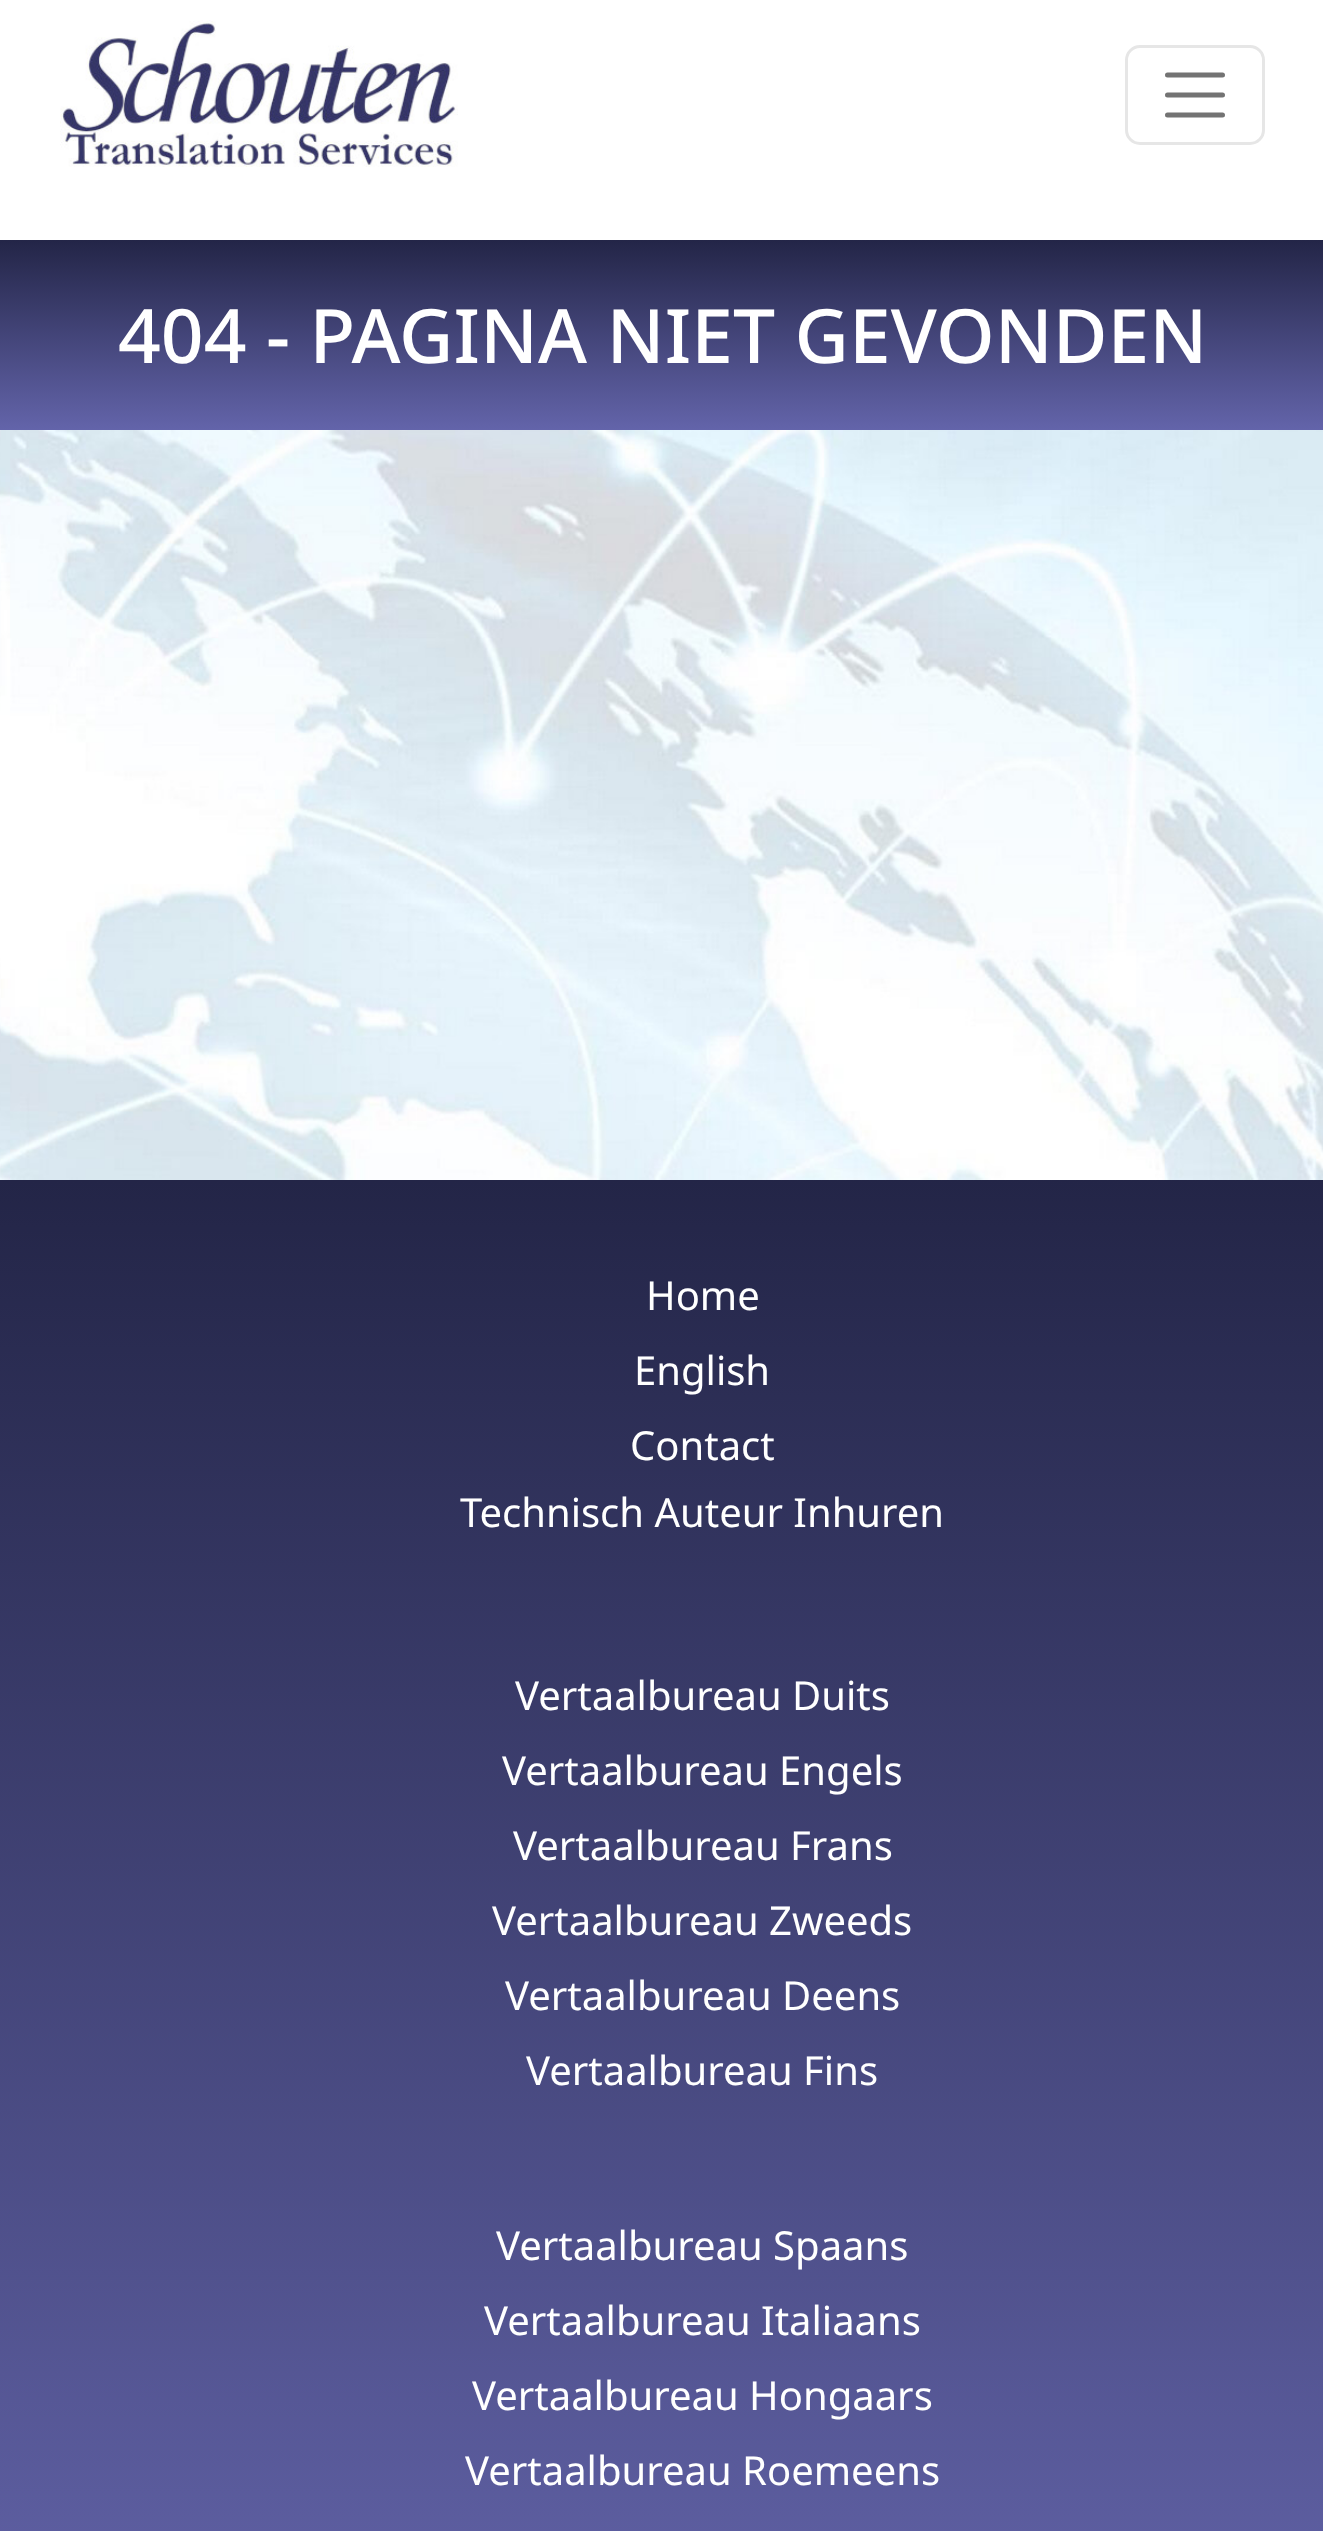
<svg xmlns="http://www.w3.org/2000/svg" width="1323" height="2531">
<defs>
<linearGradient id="g1" gradientUnits="userSpaceOnUse" x1="663" y1="240" x2="663" y2="430"><stop offset="0" stop-color="#232547"/><stop offset="1" stop-color="#6364aa"/></linearGradient>
<linearGradient id="g2" gradientUnits="userSpaceOnUse" x1="662" y1="1180" x2="663" y2="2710"><stop offset="0" stop-color="#232547"/><stop offset="1" stop-color="#6364aa"/></linearGradient>
</defs>
<rect width="100%" height="100%" fill="#fff"/>
<image x="60" y="20" width="398" height="147" href="media/1.png"/>
<rect x="1126.5" y="46.5" width="137" height="97" rx="13.5" fill="none" stroke="#e6e6e6" stroke-width="3"/>
<path d="M1167.5 75h55m-55 20h55m-55 20h55" fill="none" stroke="#737373" stroke-width="5" stroke-linecap="round"/>
<rect y="240" width="1323" height="190" fill="url(#g1)"/>
<text x="118" y="363" style="font-family:Noto Sans;font-size:74.9px;font-weight:500;fill:#fff">404 - PAGINA NIET GEVONDEN</text>
<image x="0" y="430" width="1323" height="750" href="media/2.png"/>
<rect y="1180" width="1323" height="1351" fill="url(#g2)"/>
<text x="646" y="1310" style="font-family:Noto Sans;font-size:40px;fill:#fff">Home</text>
<text x="634" y="1385" style="font-family:Noto Sans;font-size:40px;fill:#fff">English</text>
<text x="630" y="1460" style="font-family:Noto Sans;font-size:40px;fill:#fff">Contact</text>
<text x="460" y="1527" style="font-family:Noto Sans;font-size:40px;fill:#fff">Technisch Auteur Inhuren</text>
<text x="515" y="1710" style="font-family:Noto Sans;font-size:40px;fill:#fff">Vertaalbureau Duits</text>
<text x="502" y="1785" style="font-family:Noto Sans;font-size:40px;fill:#fff">Vertaalbureau Engels</text>
<text x="513" y="1860" style="font-family:Noto Sans;font-size:40px;fill:#fff">Vertaalbureau Frans</text>
<text x="492" y="1935" style="font-family:Noto Sans;font-size:40px;fill:#fff">Vertaalbureau Zweeds</text>
<text x="505" y="2010" style="font-family:Noto Sans;font-size:40px;fill:#fff">Vertaalbureau Deens</text>
<text x="526" y="2085" style="font-family:Noto Sans;font-size:40px;fill:#fff">Vertaalbureau Fins</text>
<text x="496" y="2260" style="font-family:Noto Sans;font-size:40px;fill:#fff">Vertaalbureau Spaans</text>
<text x="484" y="2335" style="font-family:Noto Sans;font-size:40px;fill:#fff">Vertaalbureau Italiaans</text>
<text x="472" y="2410" style="font-family:Noto Sans;font-size:40px;fill:#fff">Vertaalbureau Hongaars</text>
<text x="465" y="2485" style="font-family:Noto Sans;font-size:40px;fill:#fff">Vertaalbureau Roemeens</text>
</svg>
